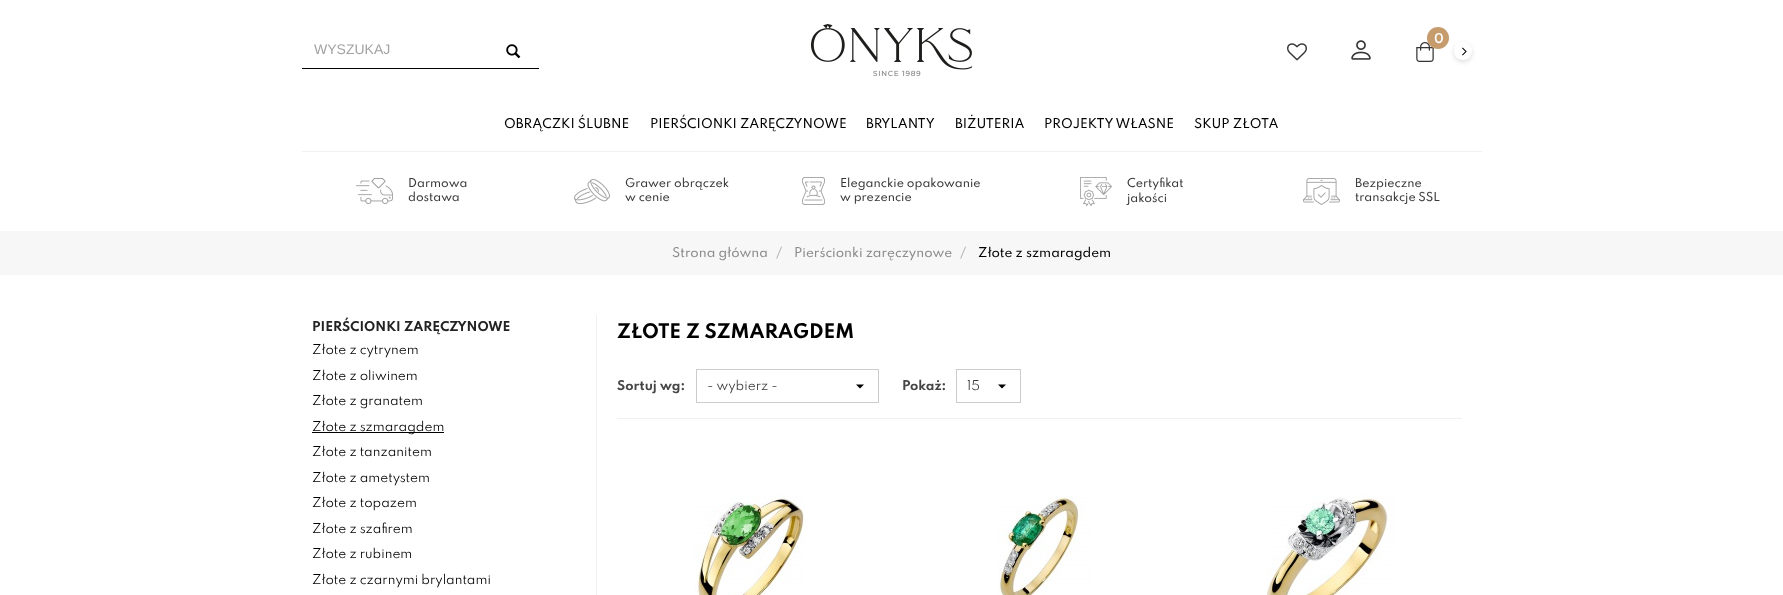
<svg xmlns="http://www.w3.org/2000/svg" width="1783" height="595">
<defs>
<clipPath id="clip1"><path d="M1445 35h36v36h-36zm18 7c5 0 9 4 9 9c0 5-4 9-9 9c-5 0-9-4-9-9c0-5 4-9 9-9z" clip-rule="evenodd"/></clipPath>
</defs>
<rect width="100%" height="100%" fill="#fff"/>
<image x="811" y="24" width="161" height="52" href="media/1.png"/>
<image x="1416" y="42" width="18" height="20" href="media/2.png"/>
<g clip-path="url(#clip1)">
<rect x="1454" y="44" width="18" height="18" rx="9" fill="#ddd" filter="blur(2.5px)"/>
</g>
<circle cx="1438" cy="38" r="11" fill="#c69c6d"/>
<text x="1434" y="43" style="font-family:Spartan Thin;font-size:12px;font-weight:600;fill:#fff">0</text>
<image x="1462" y="47" width="5" height="9" href="media/3.png"/>
<image x="1287" y="43" width="20" height="18" href="media/4.png"/>
<image x="1351" y="40" width="20" height="20" href="media/5.png"/>
<rect x="302" y="68" width="237" height="1" fill="#000"/>
<text x="314" y="54" style="font-family:Liberation Sans;font-size:14px;fill:#a3a2a2">WYSZUKAJ</text>
<image x="506" y="44" width="15" height="15" href="media/6.png"/>
<rect x="302" y="151" width="1180" height="1" fill="#f1f1f1"/>
<text x="504" y="128" style="font-family:Spartan Thin;font-size:12px;font-weight:500;fill:#000">OBRĄCZKI ŚLUBNE</text>
<text x="650" y="128" style="font-family:Spartan Thin;font-size:12px;font-weight:500;fill:#000">PIERŚCIONKI ZARĘCZYNOWE</text>
<text x="866" y="128" style="font-family:Spartan Thin;font-size:12px;font-weight:500;fill:#000">BRYLANTY</text>
<text x="955" y="128" style="font-family:Spartan Thin;font-size:12px;font-weight:500;fill:#000">BIŻUTERIA</text>
<text x="1044" y="128" style="font-family:Spartan Thin;font-size:12px;font-weight:500;fill:#000">PROJEKTY WŁASNE</text>
<text x="1194" y="128" style="font-family:Spartan Thin;font-size:12px;font-weight:500;fill:#000">SKUP ZŁOTA</text>
<image x="356" y="178" width="37" height="26" href="media/7.png"/>
<text x="408" y="187" style="font-family:Spartan Thin;font-size:11px;font-weight:500;fill:#3a3a3a">Darmowa</text>
<text x="408" y="201" style="font-family:Spartan Thin;font-size:11px;font-weight:500;fill:#3a3a3a">dostawa</text>
<image x="574" y="179" width="36" height="25" href="media/8.png"/>
<text x="625" y="187" style="font-family:Spartan Thin;font-size:11px;font-weight:500;fill:#3a3a3a">Grawer obrączek</text>
<text x="625" y="201" style="font-family:Spartan Thin;font-size:11px;font-weight:500;fill:#3a3a3a">w cenie</text>
<image x="802" y="177" width="23" height="28" href="media/9.png"/>
<text x="840" y="187" style="font-family:Spartan Thin;font-size:11px;font-weight:500;fill:#3a3a3a">Eleganckie opakowanie</text>
<text x="840" y="201" style="font-family:Spartan Thin;font-size:11px;font-weight:500;fill:#3a3a3a">w prezencie</text>
<image x="1080" y="177" width="32" height="29" href="media/10.png"/>
<text x="1127" y="187" style="font-family:Spartan Thin;font-size:11px;font-weight:500;fill:#3a3a3a">Certyfikat</text>
<text x="1127" y="202" style="font-family:Spartan Thin;font-size:11px;font-weight:500;fill:#3a3a3a">jakości</text>
<image x="1303" y="178" width="37" height="27" href="media/11.png"/>
<text x="1355" y="187" style="font-family:Spartan Thin;font-size:11px;font-weight:500;fill:#3a3a3a">Bezpieczne</text>
<text x="1355" y="201" style="font-family:Spartan Thin;font-size:11px;font-weight:500;fill:#3a3a3a">transakcje SSL</text>
<rect y="231" width="1783" height="44" fill="#f7f7f7"/>
<text x="672" y="257" style="font-family:Spartan Thin;font-size:12px;font-weight:500;fill:#8c8c8c">Strona główna</text>
<text x="776" y="257" style="font-family:Spartan Thin;font-size:12px;font-weight:500;fill:#b2b2b2">/</text>
<text x="794" y="257" style="font-family:Spartan Thin;font-size:12px;font-weight:500;fill:#8c8c8c">Pierścionki zaręczynowe</text>
<text x="960" y="257" style="font-family:Spartan Thin;font-size:12px;font-weight:500;fill:#b2b2b2">/</text>
<text x="978" y="257" style="font-family:Spartan Thin;font-size:12px;font-weight:500;fill:#000">Złote z szmaragdem</text>
<rect x="596" y="315" width="1" height="280" fill="#f1f1f1"/>
<text x="312" y="331" style="font-family:Spartan Thin;font-size:12px;font-weight:bold;fill:#232323">PIERŚCIONKI ZARĘCZYNOWE</text>
<text x="312" y="354" style="font-family:Spartan Thin;font-size:12px;fill:#000">Złote z cytrynem</text>
<text x="312" y="380" style="font-family:Spartan Thin;font-size:12px;fill:#000">Złote z oliwinem</text>
<text x="312" y="405" style="font-family:Spartan Thin;font-size:12px;fill:#000">Złote z granatem</text>
<rect x="312" y="432" width="132" height="1" fill="#000"/>
<text x="312" y="431" style="font-family:Spartan Thin;font-size:12px;fill:#000">Złote z szmaragdem</text>
<text x="312" y="456" style="font-family:Spartan Thin;font-size:12px;fill:#000">Złote z tanzanitem</text>
<text x="312" y="482" style="font-family:Spartan Thin;font-size:12px;fill:#000">Złote z ametystem</text>
<text x="312" y="507" style="font-family:Spartan Thin;font-size:12px;fill:#000">Złote z topazem</text>
<text x="312" y="533" style="font-family:Spartan Thin;font-size:12px;fill:#000">Złote z szafirem</text>
<text x="312" y="558" style="font-family:Spartan Thin;font-size:12px;fill:#000">Złote z rubinem</text>
<text x="312" y="584" style="font-family:Spartan Thin;font-size:12px;fill:#000">Złote z czarnymi brylantami</text>
<text x="617" y="338" style="font-family:Spartan Thin;font-size:18px;font-weight:bold;fill:#000">ZŁOTE Z SZMARAGDEM</text>
<rect x="617" y="418" width="845" height="1" fill="#f1f1f1"/>
<text x="617" y="390" style="font-family:Spartan Thin;font-size:12px;font-weight:bold;fill:#464646">Sortuj wg:</text>
<path d="M856 384.5l4 4l4-4z" fill="#000"/>
<rect x="696.5" y="369.5" width="182" height="33" fill="none" stroke="#ccc"/>
<text x="707" y="390" style="font-family:Spartan Thin;font-size:12px;fill:#3a3a3a">- wybierz -</text>
<text x="902" y="390" style="font-family:Spartan Thin;font-size:12px;font-weight:bold;fill:#464646">Pokaż:</text>
<path d="M998 384.5l4 4l4-4z" fill="#000"/>
<rect x="956.5" y="369.5" width="64" height="33" fill="none" stroke="#ccc"/>
<text x="967" y="390" style="font-family:Spartan Thin;font-size:12px;fill:#3a3a3a">15</text>
<image x="694" y="494" width="111" height="101" href="media/12.png"/>
<image x="997" y="495" width="96" height="100" href="media/13.png"/>
<image x="1266" y="494" width="131" height="101" href="media/14.png"/>
</svg>
